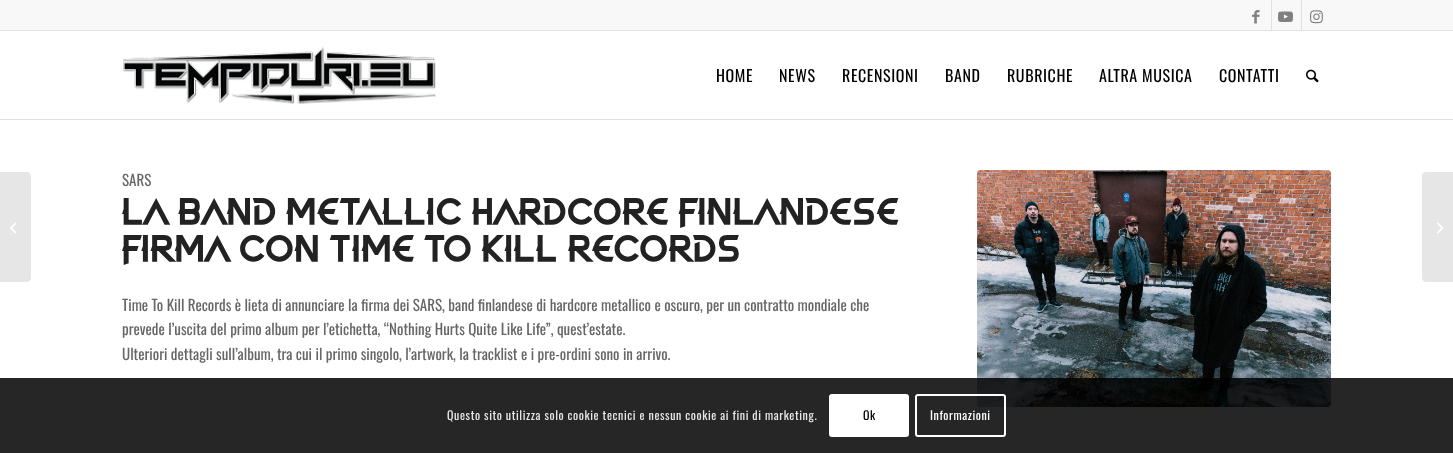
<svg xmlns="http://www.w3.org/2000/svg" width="1453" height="453">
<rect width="100%" height="100%" fill="#fff"/>
<rect width="1453" height="30" fill="#f8f8f8"/>
<rect y="30" width="1453" height="1" fill="#e1e1e1"/>
<rect x="1271" width="1" height="30" fill="#e1e1e1"/>
<image x="1252" y="10" width="8" height="14" href="media/1.png"/>
<rect x="1301" width="1" height="30" fill="#e1e1e1"/>
<image x="1278" y="11" width="15" height="11" href="media/2.png"/>
<image x="1310" y="10" width="13" height="14" href="media/3.png"/>
<rect y="119" width="1453" height="1" fill="#e1e1e1"/>
<image x="123" y="47" width="313" height="57" href="media/4.png"/>
<text x="716" y="82" style="font-family:Oswald;font-size:16px;letter-spacing:0.6px;fill:#000">HOME</text>
<text x="779" y="82" style="font-family:Oswald;font-size:16px;letter-spacing:0.6px;fill:#000">NEWS</text>
<text x="842" y="82" style="font-family:Oswald;font-size:16px;letter-spacing:0.6px;fill:#000">RECENSIONI</text>
<text x="945" y="82" style="font-family:Oswald;font-size:16px;letter-spacing:0.6px;fill:#000">BAND</text>
<text x="1007" y="82" style="font-family:Oswald;font-size:16px;letter-spacing:0.6px;fill:#000">RUBRICHE</text>
<text x="1099" y="82" style="font-family:Oswald;font-size:16px;letter-spacing:0.6px;fill:#000">ALTRA MUSICA</text>
<text x="1219" y="82" style="font-family:Oswald;font-size:16px;letter-spacing:0.6px;fill:#000">CONTATTI</text>
<image x="1306" y="69" width="13" height="14" href="media/5.png"/>
<path d="M0 172h27c2 0 4 2 4 4v102c0 2-2 4-4 4h-27z" fill="#e6e6e6"/>
<image x="10" y="222" width="6" height="12" href="media/6.png"/>
<text x="122" y="186" style="font-family:Oswald;font-size:15px;fill:#666">SARS</text>
<text x="122" y="223" style="font-family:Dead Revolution;font-size:34px;letter-spacing:1px;fill:#222">LA BAND METALLIC HARDCORE FINLANDESE</text>
<text x="122" y="260" style="font-family:Dead Revolution;font-size:34px;letter-spacing:1px;fill:#222">FIRMA CON TIME TO KILL RECORDS</text>
<text x="122" y="311" style="font-family:Oswald;font-size:15px;fill:#666">Time To Kill Records è lieta di annunciare la firma dei SARS, band finlandese di hardcore metallico e oscuro, per un contratto mondiale che</text>
<text x="122" y="335" style="font-family:Oswald;font-size:15px;fill:#666">prevede l’uscita del primo album per l’etichetta, “Nothing Hurts Quite Like Life”, quest’estate.</text>
<text x="122" y="360" style="font-family:Oswald;font-size:15px;fill:#666">Ulteriori dettagli sull’album, tra cui il primo singolo, l’artwork, la tracklist e i pre-ordini sono in arrivo.</text>
<image x="977" y="170" width="354" height="237" href="media/7.png"/>
<path d="M1426 172h27v110h-27c-2 0-4-2-4-4v-102c0-2 2-4 4-4z" fill="#e6e6e6"/>
<image x="1437" y="222" width="6" height="12" href="media/8.png"/>
<rect y="378" width="1453" height="75" fill="#000000d9"/>
<text x="447" y="420" style="font-family:Oswald;font-size:12px;letter-spacing:0.6px;fill:#e8e8e8">Questo sito utilizza solo cookie tecnici e nessun cookie ai fini di marketing.</text>
<rect x="829" y="394" width="80" height="43" rx="3" fill="#fff"/>
<text x="863" y="420" style="font-family:Oswald;font-size:12px;letter-spacing:0.6px;fill:#000">Ok</text>
<rect x="916" y="395" width="89" height="41" rx="2" fill="none" stroke="#fff" stroke-width="2"/>
<text x="930" y="420" style="font-family:Oswald;font-size:12px;letter-spacing:0.6px;fill:#fff">Informazioni</text>
</svg>
